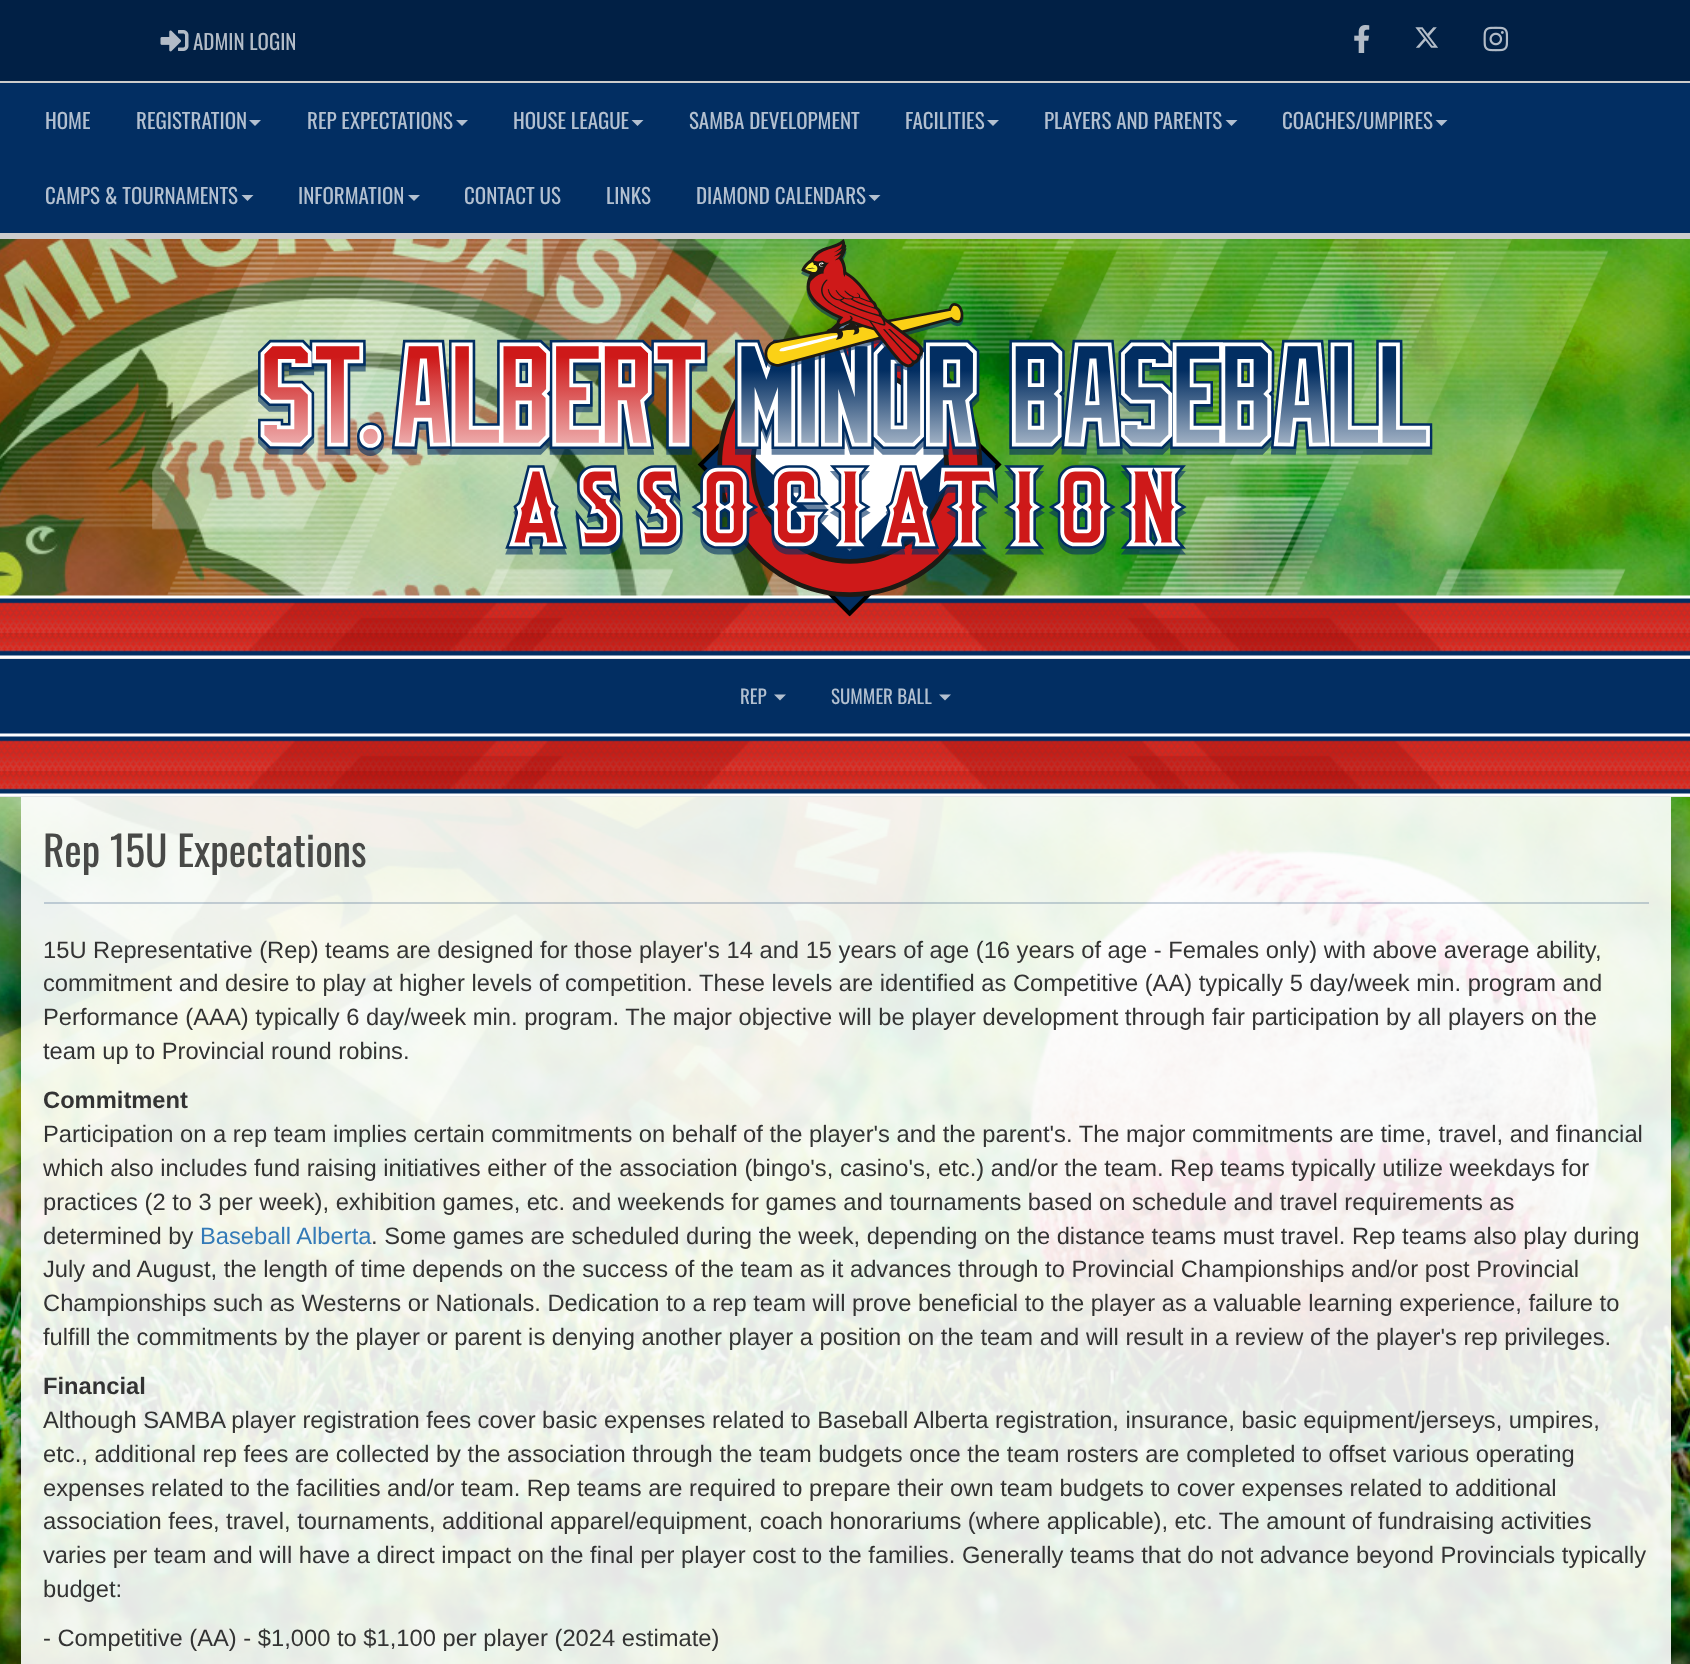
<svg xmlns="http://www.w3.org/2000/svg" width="1690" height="1664">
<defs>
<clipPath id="clip1"><rect x="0" y="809" width="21" height="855"/></clipPath>
<clipPath id="clip2"><rect x="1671" y="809" width="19" height="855"/></clipPath>
</defs>
<rect width="100%" height="100%" fill="#fff"/>
<rect y="81" width="1690" height="2" fill="#ccc"/>
<rect width="1690" height="81" fill="#012045"/>
<image x="160" y="30" width="29" height="22" href="media/1.png"/>
<text x="193" y="50" style="font-family:Oswald;font-size:21px;fill:#b3bcc7">ADMIN LOGIN</text>
<image x="1354" y="25" width="16" height="28" href="media/2.png"/>
<image x="1415" y="27" width="23" height="21" href="media/3.png"/>
<image x="1483" y="26" width="26" height="26" href="media/4.png"/>
<rect y="83" width="1690" height="150" fill="#022e62"/>
<rect y="233" width="1690" height="6" fill="#ccc"/>
<text x="45" y="129" style="font-family:Oswald;font-size:21px;fill:#b3c0d0">HOME</text>
<text x="136" y="129" style="font-family:Oswald;font-size:21px;fill:#b3c0d0">REGISTRATION</text>
<path d="M249 120h12l-6 6z" fill="#b3c0d0"/>
<text x="307" y="129" style="font-family:Oswald;font-size:21px;fill:#b3c0d0">REP EXPECTATIONS</text>
<path d="M456 120h12l-6 6z" fill="#b3c0d0"/>
<text x="513" y="129" style="font-family:Oswald;font-size:21px;fill:#b3c0d0">HOUSE LEAGUE</text>
<path d="M631.5 120h12l-6 6z" fill="#b3c0d0"/>
<text x="689" y="129" style="font-family:Oswald;font-size:21px;fill:#b3c0d0">SAMBA DEVELOPMENT</text>
<text x="905" y="129" style="font-family:Oswald;font-size:21px;fill:#b3c0d0">FACILITIES</text>
<path d="M987 120h12l-6 6z" fill="#b3c0d0"/>
<text x="1044" y="129" style="font-family:Oswald;font-size:21px;fill:#b3c0d0">PLAYERS AND PARENTS</text>
<path d="M1225.5 120h12l-6 6z" fill="#b3c0d0"/>
<text x="1282" y="129" style="font-family:Oswald;font-size:21px;fill:#b3c0d0">COACHES/UMPIRES</text>
<path d="M1435.5 120h12l-6 6z" fill="#b3c0d0"/>
<text x="45" y="204" style="font-family:Oswald;font-size:21px;fill:#b3c0d0">CAMPS &amp; TOURNAMENTS</text>
<path d="M241.5 195h12l-6 6z" fill="#b3c0d0"/>
<text x="298" y="204" style="font-family:Oswald;font-size:21px;fill:#b3c0d0">INFORMATION</text>
<path d="M408 195h12l-6 6z" fill="#b3c0d0"/>
<text x="464" y="204" style="font-family:Oswald;font-size:21px;fill:#b3c0d0">CONTACT US</text>
<text x="606" y="204" style="font-family:Oswald;font-size:21px;fill:#b3c0d0">LINKS</text>
<text x="696" y="204" style="font-family:Oswald;font-size:21px;fill:#b3c0d0">DIAMOND CALENDARS</text>
<path d="M868.5 195h12l-6 6z" fill="#b3c0d0"/>
<image x="0" y="239" width="1690" height="1425" href="media/5.png"/>
<image x="0" y="239" width="1626" height="357" href="media/6.png"/>
<rect y="658" width="1690" height="1" fill="#ccc"/>
<image x="0" y="595" width="1690" height="64" href="media/8.png"/>
<image x="258" y="239" width="1175" height="378" href="media/7.png"/>
<rect y="659" width="1690" height="75" fill="#022e62"/>
<text x="740" y="704" style="font-family:Oswald;font-size:19px;fill:#b3c0d0">REP</text>
<path d="M774 694.5h12l-6 6z" fill="#b3c0d0"/>
<text x="831" y="704" style="font-family:Oswald;font-size:19px;fill:#b3c0d0">SUMMER BALL</text>
<path d="M939 694.5h12l-6 6z" fill="#b3c0d0"/>
<g clip-path="url(#clip1)">
<rect x="21" y="834" width="1575" height="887" fill="#00000073" filter="blur(19px)"/>
</g>
<g clip-path="url(#clip2)">
<rect x="96" y="834" width="1575" height="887" fill="#00000073" filter="blur(19px)"/>
</g>
<rect y="796" width="1690" height="1" fill="#ccc"/>
<image x="0" y="733" width="1690" height="64" href="media/9.png"/>
<rect x="21" y="797" width="1650" height="867" fill="#ffffffe6"/>
<text x="43" y="867" style="font-family:Oswald;font-size:41.5px;fill:#484947">Rep 15U Expectations</text>
<rect x="44" y="902" width="1605" height="2" fill="#022e6233"/>
<text x="43" y="958" style="font-family:Liberation Sans;font-size:23.73px;fill:#333">15U Representative (Rep) teams are designed for those player's 14 and 15 years of age (16 years of age - Females only) with above average ability,</text>
<text x="43" y="991" style="font-family:Liberation Sans;font-size:23.73px;fill:#333">commitment and desire to play at higher levels of competition. These levels are identified as Competitive (AA) typically 5 day/week min. program and</text>
<text x="43" y="1025" style="font-family:Liberation Sans;font-size:23.73px;fill:#333">Performance (AAA) typically 6 day/week min. program. The major objective will be player development through fair participation by all players on the</text>
<text x="43" y="1059" style="font-family:Liberation Sans;font-size:23.73px;fill:#333">team up to Provincial round robins.</text>
<text x="43" y="1108" style="font-family:Liberation Sans;font-size:23.73px;font-weight:bold;fill:#333">Commitment</text>
<text x="43" y="1142" style="font-family:Liberation Sans;font-size:23.73px;fill:#333">Participation on a rep team implies certain commitments on behalf of the player's and the parent's. The major commitments are time, travel, and financial</text>
<text x="43" y="1176" style="font-family:Liberation Sans;font-size:23.73px;fill:#333">which also includes fund raising initiatives either of the association (bingo's, casino's, etc.) and/or the team. Rep teams typically utilize weekdays for</text>
<text x="43" y="1210" style="font-family:Liberation Sans;font-size:23.73px;fill:#333">practices (2 to 3 per week), exhibition games, etc. and weekends for games and tournaments based on schedule and travel requirements as</text>
<text x="43" y="1244" style="font-family:Liberation Sans;font-size:23.73px;fill:#333">determined by</text>
<text x="200" y="1244" style="font-family:Liberation Sans;font-size:23.73px;fill:#337ab7">Baseball Alberta</text>
<text x="371" y="1244" style="font-family:Liberation Sans;font-size:23.73px;fill:#333">. Some games are scheduled during the week, depending on the distance teams must travel. Rep teams also play during</text>
<text x="43" y="1277" style="font-family:Liberation Sans;font-size:23.73px;fill:#333">July and August, the length of time depends on the success of the team as it advances through to Provincial Championships and/or post Provincial</text>
<text x="43" y="1311" style="font-family:Liberation Sans;font-size:23.73px;fill:#333">Championships such as Westerns or Nationals. Dedication to a rep team will prove beneficial to the player as a valuable learning experience, failure to</text>
<text x="43" y="1345" style="font-family:Liberation Sans;font-size:23.73px;fill:#333">fulfill the commitments by the player or parent is denying another player a position on the team and will result in a review of the player's rep privileges.</text>
<text x="43" y="1394" style="font-family:Liberation Sans;font-size:23.73px;font-weight:bold;fill:#333">Financial</text>
<text x="43" y="1428" word-spacing="-0.1" style="font-family:Liberation Sans;font-size:23.73px;fill:#333">Although SAMBA player registration fees cover basic expenses related to Baseball Alberta registration, insurance, basic equipment/jerseys, umpires,</text>
<text x="43" y="1462" style="font-family:Liberation Sans;font-size:23.73px;fill:#333">etc., additional rep fees are collected by the association through the team budgets once the team rosters are completed to offset various operating</text>
<text x="43" y="1496" style="font-family:Liberation Sans;font-size:23.73px;fill:#333">expenses related to the facilities and/or team. Rep teams are required to prepare their own team budgets to cover expenses related to additional</text>
<text x="43" y="1529" word-spacing="-0.1" style="font-family:Liberation Sans;font-size:23.73px;fill:#333">association fees, travel, tournaments, additional apparel/equipment, coach honorariums (where applicable), etc. The amount of fundraising activities</text>
<text x="43" y="1563" style="font-family:Liberation Sans;font-size:23.73px;fill:#333">varies per team and will have a direct impact on the final per player cost to the families. Generally teams that do not advance beyond Provincials typically</text>
<text x="43" y="1597" style="font-family:Liberation Sans;font-size:23.73px;fill:#333">budget:</text>
<text x="43" y="1646" style="font-family:Liberation Sans;font-size:23.73px;fill:#333">- Competitive (AA) - $1,000 to $1,100 per player (2024 estimate)</text>
</svg>
